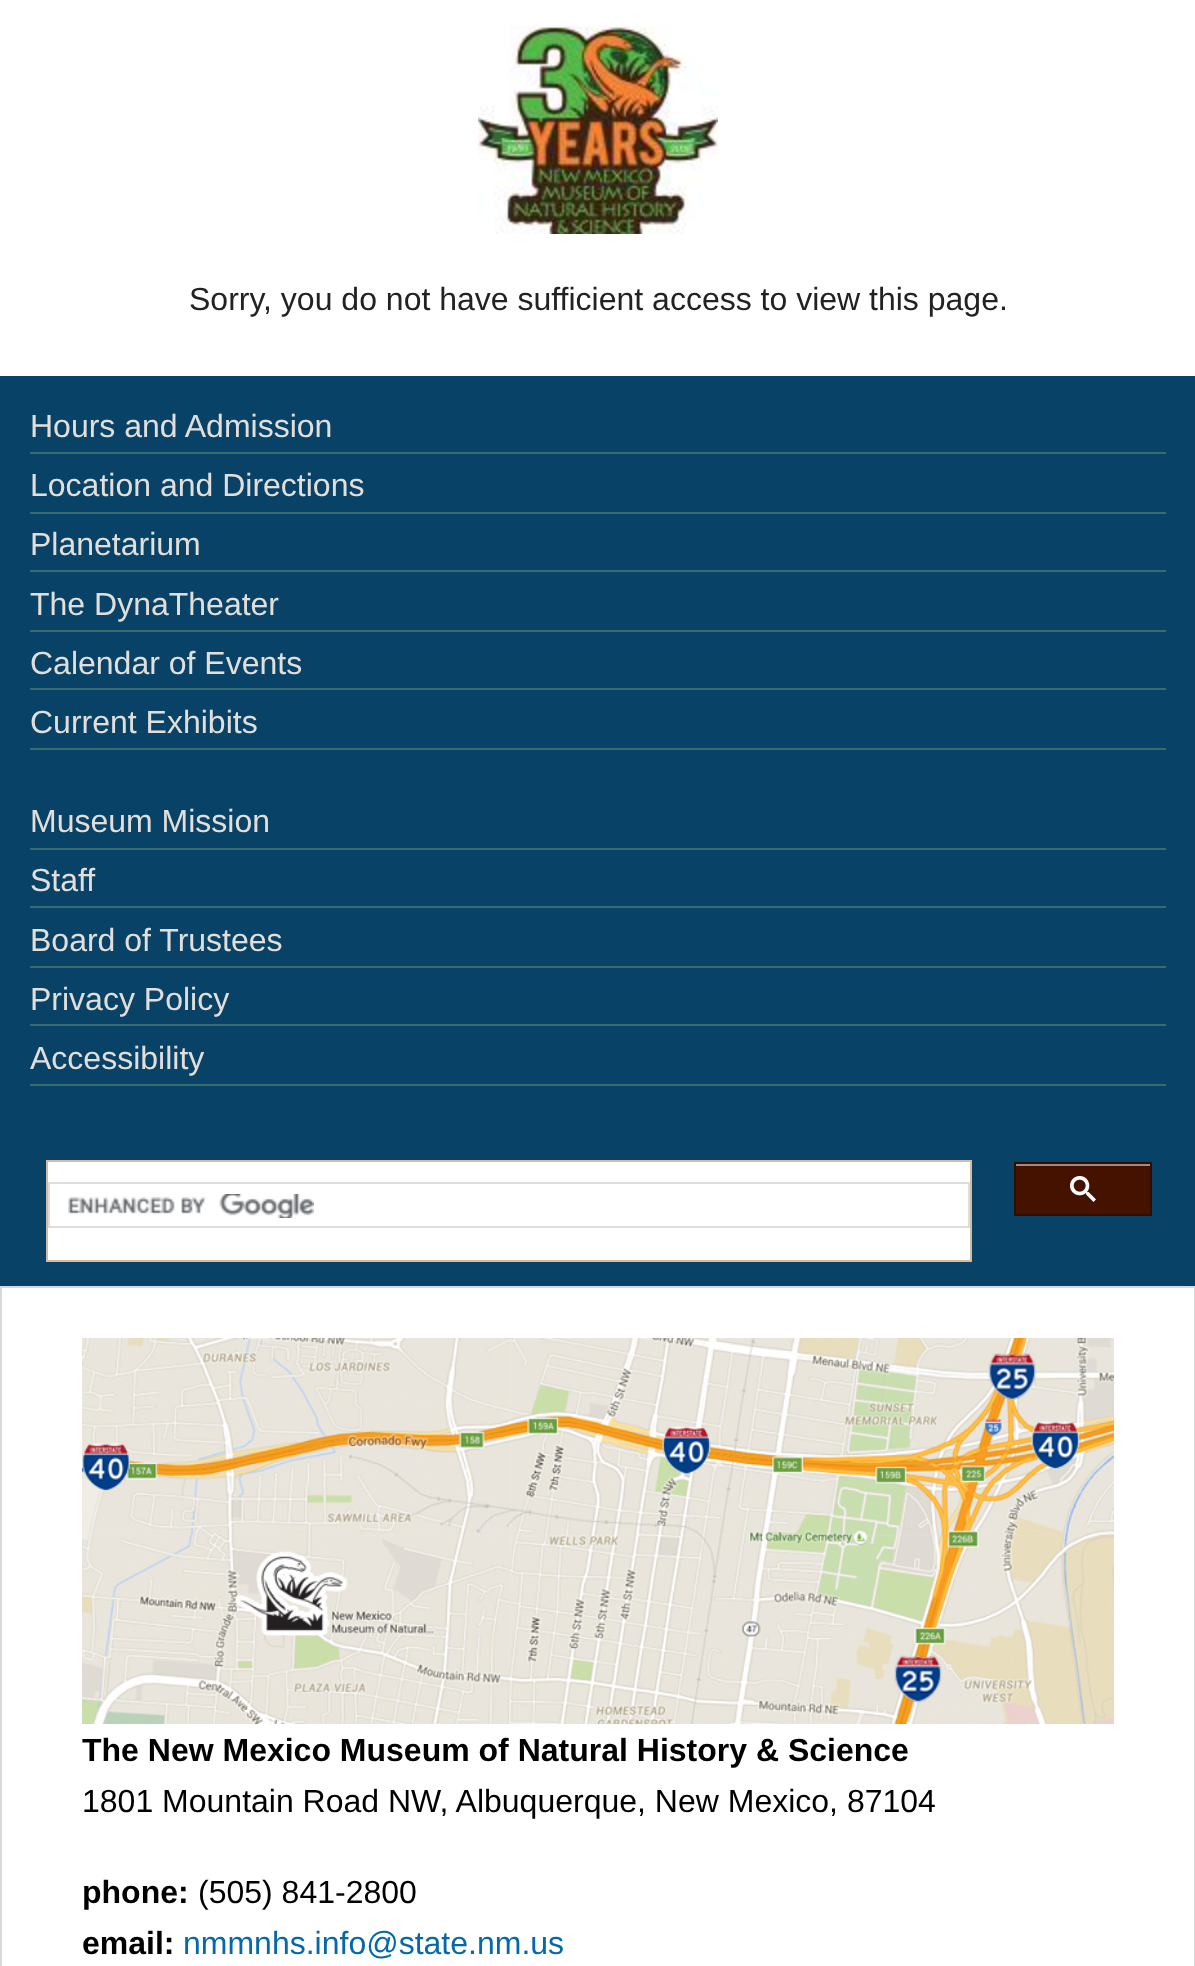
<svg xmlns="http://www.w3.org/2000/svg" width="1195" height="1966">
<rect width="100%" height="100%" fill="#084267"/>
<rect width="1195" height="376" fill="#fff"/>
<image x="478" y="25" width="240" height="209" href="media/1.png"/>
<text x="189" y="310" style="font-family:Liberation Sans;font-size:32px;fill:#222">Sorry, you do not have sufficient access to view this page.</text>
<rect x="30" y="452" width="1136" height="2" fill="#376d6a"/>
<text x="30" y="437" style="font-family:Liberation Sans;font-size:32px;fill:#e2dfdb">Hours and Admission</text>
<rect x="30" y="512" width="1136" height="2" fill="#376d6a"/>
<text x="30" y="496" style="font-family:Liberation Sans;font-size:32px;fill:#e2dfdb">Location and Directions</text>
<rect x="30" y="570" width="1136" height="2" fill="#376d6a"/>
<text x="30" y="555" style="font-family:Liberation Sans;font-size:32px;fill:#e2dfdb">Planetarium</text>
<rect x="30" y="630" width="1136" height="2" fill="#376d6a"/>
<text x="30" y="615" style="font-family:Liberation Sans;font-size:32px;fill:#e2dfdb">The DynaTheater</text>
<rect x="30" y="688" width="1136" height="2" fill="#376d6a"/>
<text x="30" y="674" style="font-family:Liberation Sans;font-size:32px;fill:#e2dfdb">Calendar of Events</text>
<rect x="30" y="748" width="1136" height="2" fill="#376d6a"/>
<text x="30" y="733" style="font-family:Liberation Sans;font-size:32px;fill:#e2dfdb">Current Exhibits</text>
<rect x="30" y="848" width="1136" height="2" fill="#376d6a"/>
<text x="30" y="832" style="font-family:Liberation Sans;font-size:32px;fill:#e2dfdb">Museum Mission</text>
<rect x="30" y="906" width="1136" height="2" fill="#376d6a"/>
<text x="30" y="891" style="font-family:Liberation Sans;font-size:32px;fill:#e2dfdb">Staff</text>
<rect x="30" y="966" width="1136" height="2" fill="#376d6a"/>
<text x="30" y="951" style="font-family:Liberation Sans;font-size:32px;fill:#e2dfdb">Board of Trustees</text>
<rect x="30" y="1024" width="1136" height="2" fill="#376d6a"/>
<text x="30" y="1010" style="font-family:Liberation Sans;font-size:32px;fill:#e2dfdb">Privacy Policy</text>
<rect x="30" y="1084" width="1136" height="2" fill="#376d6a"/>
<text x="30" y="1069" style="font-family:Liberation Sans;font-size:32px;fill:#e2dfdb">Accessibility</text>
<rect x="47" y="1161" width="924" height="100" fill="#fff" stroke="#d3bca1" stroke-width="2"/>
<rect x="48" y="1182" width="922" height="2" fill="#ddd"/>
<rect x="968" y="1182" width="2" height="46" fill="#ddd"/>
<rect x="48" y="1226" width="922" height="2" fill="#ddd"/>
<rect x="48" y="1182" width="2" height="46" fill="#ddd"/>
<image x="68" y="1194" width="246" height="24" href="media/2.png"/>
<rect x="1016" y="1166" width="134" height="48" fill="#461200"/>
<rect x="1016" y="1164" width="134" height="2" fill="#a38980"/>
<rect x="1015" y="1163" width="136" height="52" fill="none" stroke="#300d00" stroke-width="2"/>
<image x="1070" y="1176" width="26" height="26" href="media/3.png"/>
<rect y="1306" width="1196" height="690" fill="#372e0f" filter="blur(10px)"/>
<rect x="1" y="1287" width="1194" height="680" fill="#fff" stroke="#d9d9d9" stroke-width="2"/>
<image x="82" y="1338" width="1032" height="386" href="media/4.png"/>
<text x="82" y="1761" style="font-family:Liberation Sans;font-size:32px;font-weight:bold;fill:#000">The New Mexico Museum of Natural History &amp; Science</text>
<text x="82" y="1812" style="font-family:Liberation Sans;font-size:32px;fill:#000">1801 Mountain Road NW, Albuquerque, New Mexico, 87104</text>
<text x="82" y="1903" style="font-family:Liberation Sans;font-size:32px;font-weight:bold;fill:#000">phone:</text>
<text x="198" y="1903" style="font-family:Liberation Sans;font-size:32px;fill:#000">(505) 841-2800</text>
<text x="82" y="1954" style="font-family:Liberation Sans;font-size:32px;font-weight:bold;fill:#000">email:</text>
<text x="183" y="1954" style="font-family:Liberation Sans;font-size:32px;fill:#0468a9">nmmnhs.info@state.nm.us</text>
</svg>
